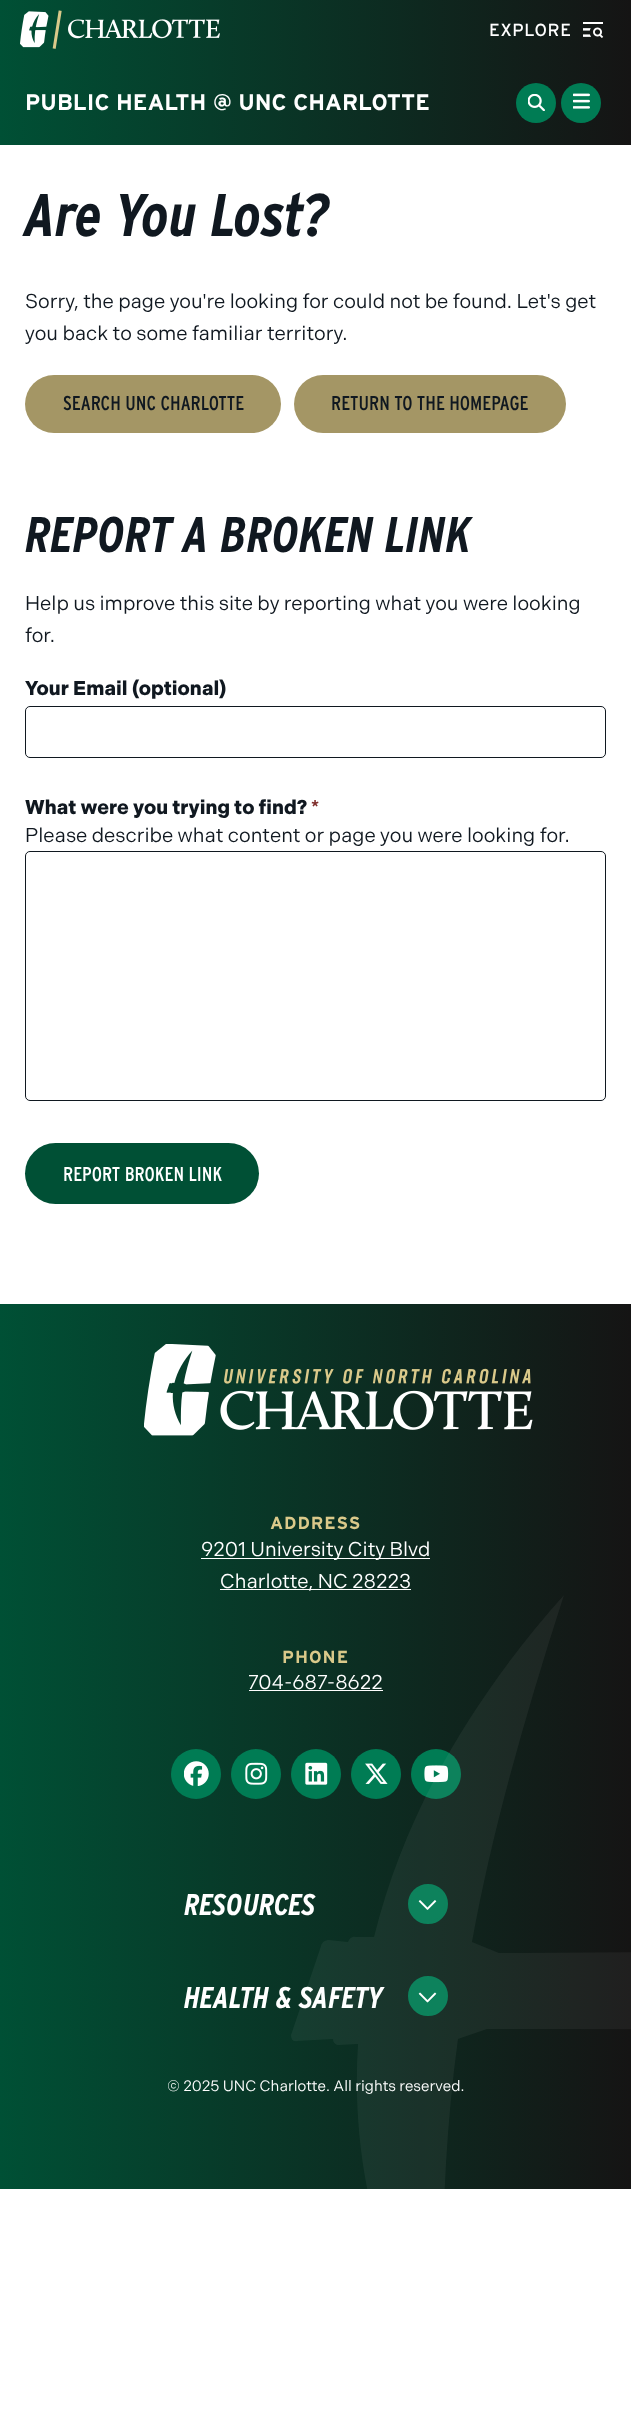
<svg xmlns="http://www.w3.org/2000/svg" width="631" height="2428">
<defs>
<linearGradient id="g1" gradientUnits="userSpaceOnUse" x1="0" y1="73" x2="631" y2="72"><stop offset="0" stop-color="#005035"/><stop offset="1" stop-color="#151414"/></linearGradient>
<linearGradient id="g2" gradientUnits="userSpaceOnUse" x1="0" y1="1746" x2="631" y2="1746"><stop offset="0" stop-color="#005035"/><stop offset="1" stop-color="#151414"/></linearGradient>
</defs>
<rect width="100%" height="100%" fill="#fff"/>
<rect width="631" height="145" fill="url(#g1)"/>
<image x="20" y="10" width="200" height="39" href="media/1.png"/>
<text x="489" y="36" style="font-family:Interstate;font-size:17.5px;letter-spacing:0.5px;fill:#fff">EXPLORE</text>
<image x="583" y="22" width="21" height="16" href="media/2.png"/>
<text x="25" y="110" style="font-family:Interstate;font-size:22.5px;font-weight:bold;fill:#fff">PUBLIC HEALTH @ UNC CHARLOTTE</text>
<circle cx="536" cy="103" r="20" fill="#007c54"/>
<image x="528" y="94" width="17" height="17" href="media/3.png"/>
<circle cx="581" cy="103" r="20" fill="#007c54"/>
<image x="573" y="93" width="17" height="16" href="media/4.png"/>
<text x="25" y="236" style="font-family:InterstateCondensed;font-size:60px;font-weight:bold;font-style:italic;fill:#101820">Are You Lost?</text>
<text x="25" y="308" style="font-family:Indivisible;font-size:20px;fill:#101820">Sorry, the page you're looking for could not be found. Let's get</text>
<text x="25" y="340" style="font-family:Indivisible;font-size:20px;fill:#101820">you back to some familiar territory.</text>
<rect x="25" y="375" width="256" height="58" rx="29" fill="#a49665"/>
<text x="63" y="410" style="font-family:InterstateCondensed;font-size:20px;fill:#101820">SEARCH UNC CHARLOTTE</text>
<rect x="294" y="375" width="272" height="58" rx="29" fill="#a49665"/>
<text x="331" y="410" style="font-family:InterstateCondensed;font-size:20px;fill:#101820">RETURN TO THE HOMEPAGE</text>
<text x="25" y="552" style="font-family:InterstateCondensed;font-size:50px;font-weight:bold;font-style:italic;fill:#101820">REPORT A BROKEN LINK</text>
<text x="25" y="610" style="font-family:Indivisible;font-size:20px;fill:#101820">Help us improve this site by reporting what you were looking</text>
<text x="25" y="642" style="font-family:Indivisible;font-size:20px;fill:#101820">for.</text>
<text x="25" y="695" style="font-family:Indivisible;font-size:20px;font-weight:bold;fill:#101820">Your Email (optional)</text>
<rect x="25.5" y="706.5" width="580" height="51" rx="4.5" fill="none" stroke="#101820"/>
<text x="25" y="814" style="font-family:Indivisible;font-size:20px;font-weight:bold;fill:#101820">What were you trying to find?</text>
<text x="311" y="814" style="font-family:Indivisible;font-size:20px;font-weight:bold;fill:#802f2d">*</text>
<text x="25" y="842" style="font-family:Indivisible;font-size:20px;fill:#101820">Please describe what content or page you were looking for.</text>
<rect x="25.5" y="851.5" width="580" height="249" rx="4.5" fill="none" stroke="#101820"/>
<rect x="25" y="1143" width="234" height="61" rx="30.5" fill="#005035"/>
<text x="63" y="1181" style="font-family:InterstateCondensed;font-size:20px;fill:#fff">REPORT BROKEN LINK</text>
<rect y="1304" width="631" height="885" fill="url(#g2)"/>
<image x="144" y="1344" width="389" height="92" href="media/5.png"/>
<text x="270" y="1529" style="font-family:Interstate;font-size:17.5px;font-weight:bold;letter-spacing:1px;fill:#dac98a">ADDRESS</text>
<rect x="201" y="1558" width="229" height="1" fill="#fff"/>
<text x="201" y="1556" style="font-family:Indivisible;font-size:20px;fill:#fff">9201 University City Blvd</text>
<rect x="220" y="1589" width="191" height="1" fill="#fff"/>
<text x="220" y="1588" style="font-family:Indivisible;font-size:20px;fill:#fff">Charlotte, NC 28223</text>
<text x="282" y="1663" style="font-family:Interstate;font-size:17.5px;font-weight:bold;letter-spacing:1px;fill:#dac98a">PHONE</text>
<text x="248" y="1689" style="font-family:Indivisible;font-size:20px;fill:#fff">704-687-8622</text>
<rect x="249" y="1690" width="134" height="1" fill="#fff"/>
<circle cx="196" cy="1774" r="25" fill="#007c54"/>
<image x="184" y="1761" width="25" height="25" href="media/6.png"/>
<circle cx="256" cy="1774" r="25" fill="#007c54"/>
<image x="245" y="1762" width="23" height="23" href="media/7.png"/>
<circle cx="316" cy="1774" r="25" fill="#007c54"/>
<image x="305" y="1762" width="23" height="23" href="media/8.png"/>
<circle cx="376" cy="1774" r="25" fill="#007c54"/>
<image x="365" y="1763" width="23" height="21" href="media/9.png"/>
<circle cx="436" cy="1774" r="25" fill="#007c54"/>
<image x="424" y="1765" width="25" height="18" href="media/10.png"/>
<text x="184" y="1915" style="font-family:InterstateCondensed;font-size:30px;font-weight:bold;font-style:italic;fill:#fff">RESOURCES</text>
<circle cx="428" cy="1904" r="18.5" fill="#007c54" stroke="#007c54" stroke-width="3"/>
<image x="418" y="1900" width="19" height="10" href="media/11.png"/>
<text x="184" y="2008" style="font-family:InterstateCondensed;font-size:30px;font-weight:bold;font-style:italic;fill:#fff">HEALTH &amp; SAFETY</text>
<circle cx="428" cy="1996" r="18.5" fill="#007c54" stroke="#007c54" stroke-width="3"/>
<image x="418" y="1992" width="19" height="11" href="media/12.png"/>
<path d="M458 2039c-16 116-17 232-15 347c-61-104-93-220-85-342l-19 1c-3 0-6-2-6-6l-36 2c-4 1-6-2-6-6l30-89c1-4 4-6 8-6l19 2c1-3 4-6 8-5h18c30-122 97-238 190-342c-37 115-71 231-92 347l27 11l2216-12l-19 92l-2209-4z" fill="#ffffff0d"/>
<text x="167" y="2091" style="font-family:Indivisible;font-size:15px;fill:#fff">© 2025 UNC Charlotte. All rights reserved.</text>
</svg>
